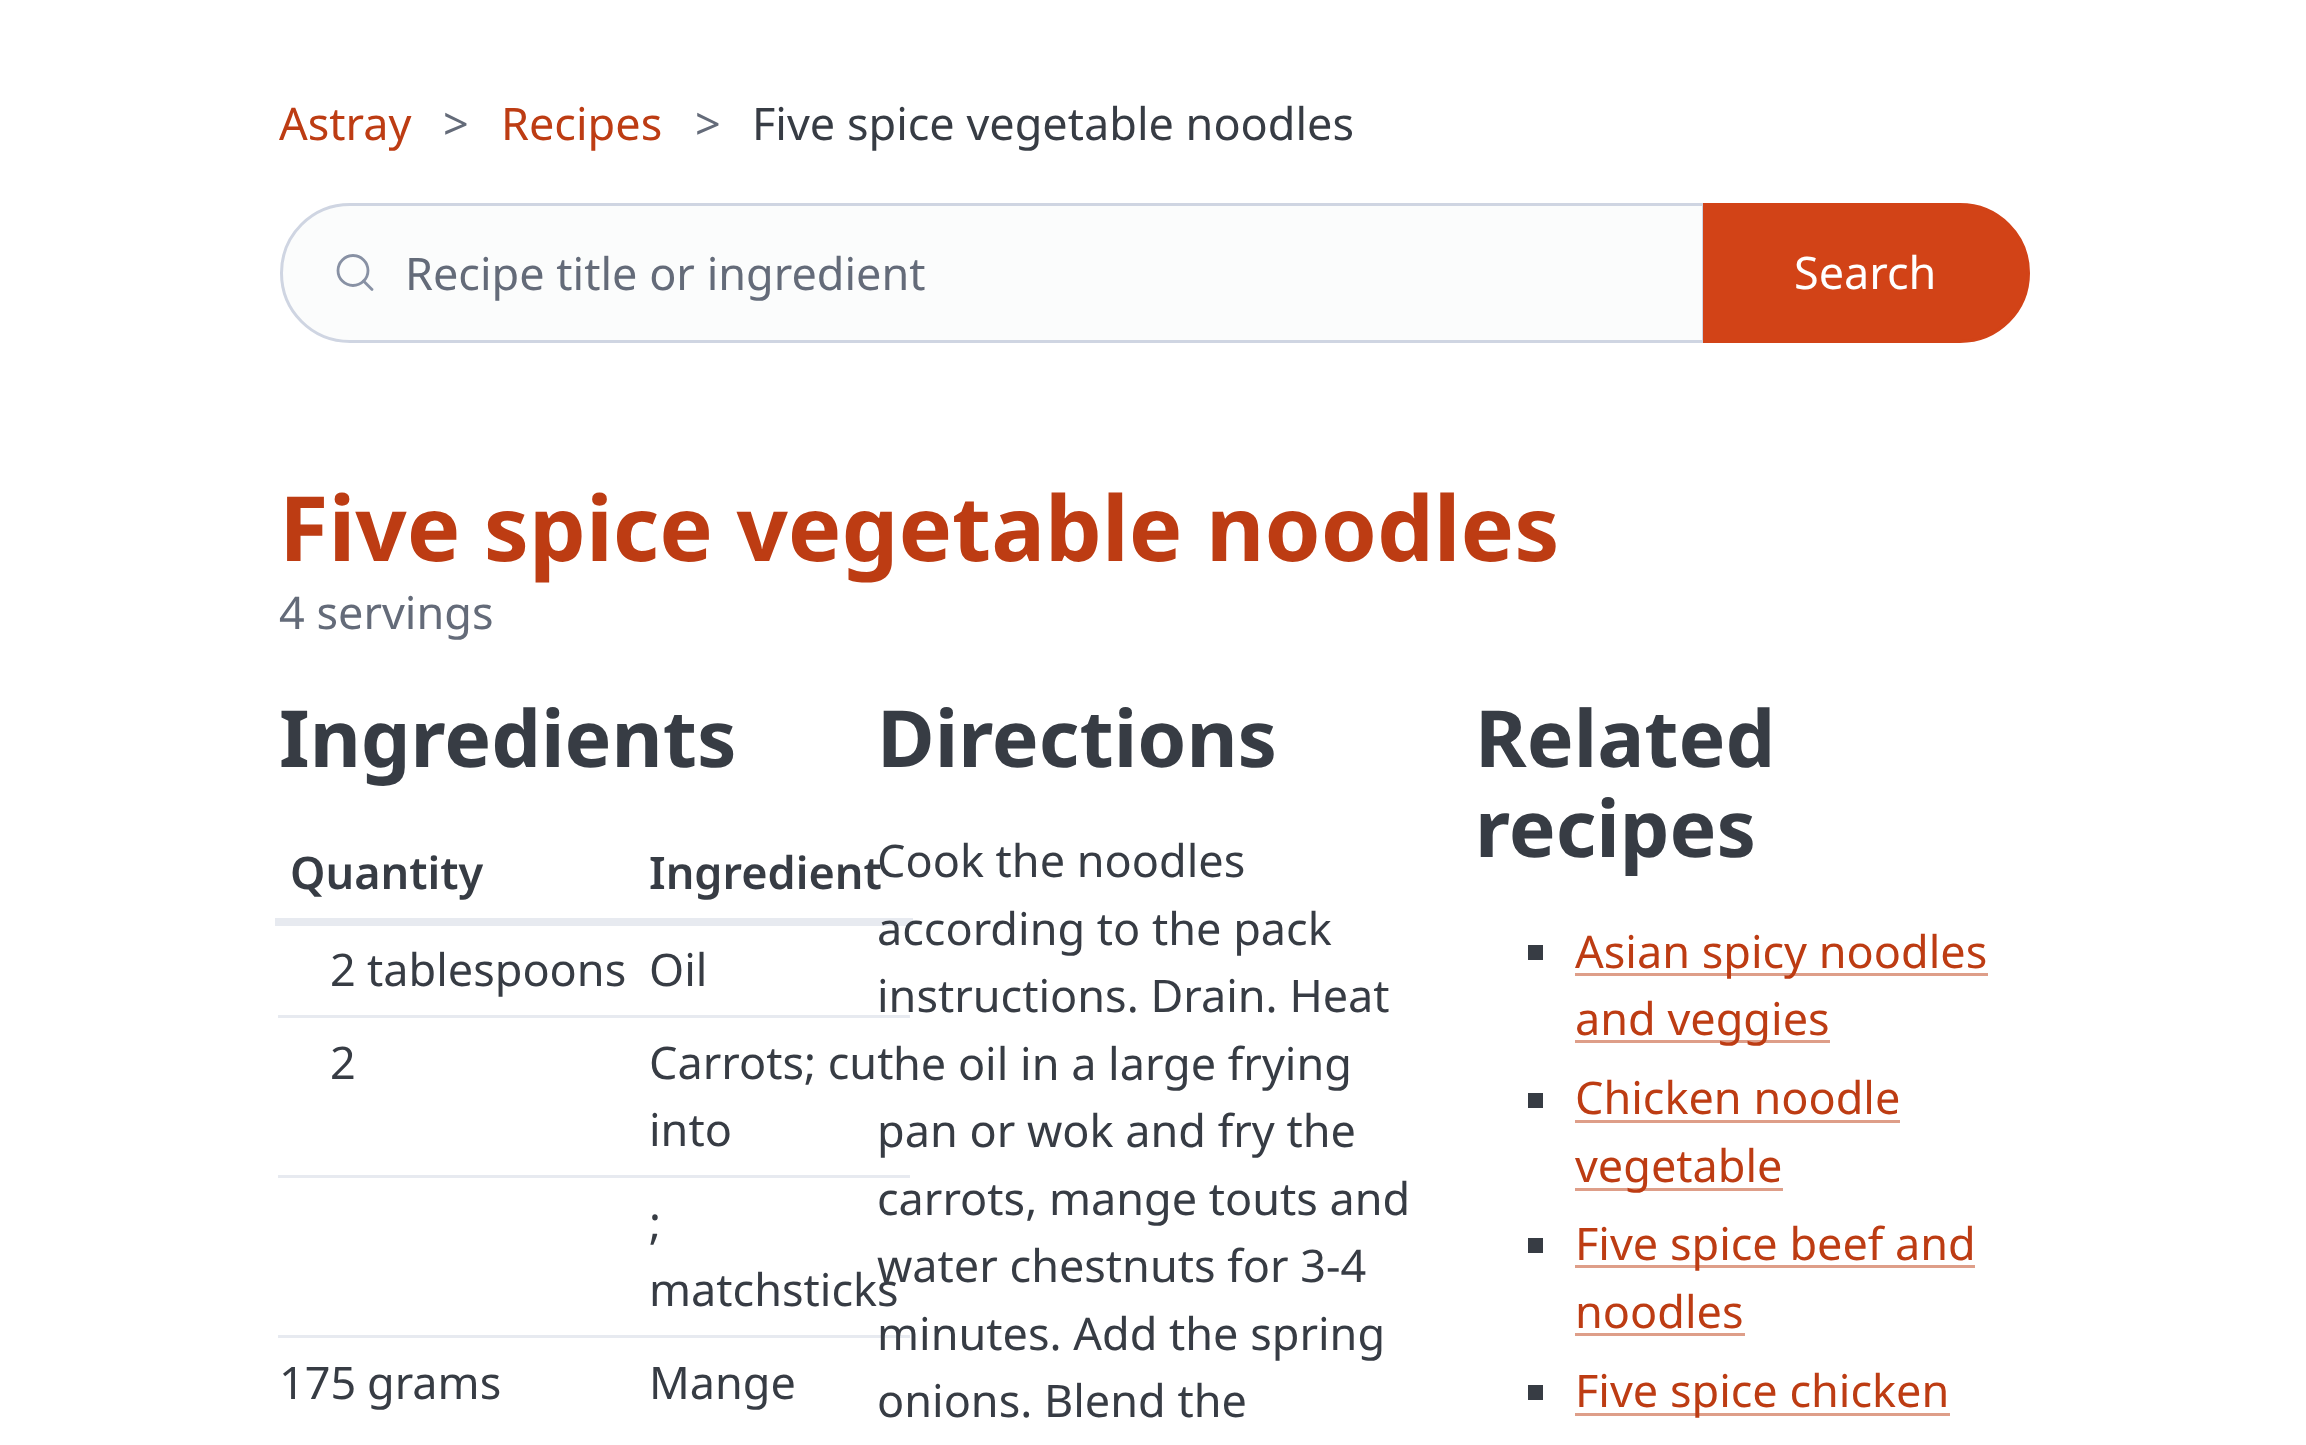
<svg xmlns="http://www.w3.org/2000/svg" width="2306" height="1445">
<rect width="100%" height="100%" fill="#fff"/>
<text x="279" y="140" style="font-family:Noto Sans;font-size:45px;fill:#bd3c13">Astray</text>
<text x="443" y="140" style="font-family:Noto Sans;font-size:45px;fill:#646b79">&gt;</text>
<text x="501" y="140" style="font-family:Noto Sans;font-size:45px;fill:#bd3c13">Recipes</text>
<text x="695" y="140" style="font-family:Noto Sans;font-size:45px;fill:#646b79">&gt;</text>
<text x="752" y="140" style="font-family:Noto Sans;font-size:45px;fill:#373c44">Five spice vegetable noodles</text>
<path d="M350 203h1355v140h-1355c-38.5 0-70-31.5-70-70c0-38.5 31.5-70 70-70z" fill="#fbfcfc"/>
<circle cx="353" cy="270.5" r="15" fill="none" stroke="#8891a4" stroke-width="2.8"/>
<path d="M372 289.5l-8.5-8.5" fill="none" stroke="#8891a4" stroke-width="2.8" stroke-linecap="round" stroke-linejoin="round"/>
<path d="M350 204.5h1353.5v137h-1353.5c-38 0-68.5-30.5-68.5-68.5c0-38 30.5-68.5 68.5-68.5z" fill="none" stroke="#cfd5e2" stroke-width="3"/>
<text x="405" y="290" style="font-family:Noto Sans;font-size:45px;fill:#646b79">Recipe title or ingredient</text>
<path d="M1704.5 204.5h255.5c38 0 68.5 30.5 68.5 68.5c0 38-30.5 68.5-68.5 68.5h-255.5z" fill="#d24317" stroke="#d24317" stroke-width="3"/>
<text x="1794" y="289" style="font-family:Noto Sans;font-size:45px;fill:#fff">Search</text>
<text x="279" y="561" style="font-family:Noto Sans;font-size:90px;font-weight:bold;fill:#bd3c13">Five spice vegetable noodles</text>
<text x="279" y="629" style="font-family:Noto Sans;font-size:45px;fill:#646b79">4 servings</text>
<text x="279" y="767" style="font-family:Noto Sans;font-size:78.75px;font-weight:bold;fill:#373c44">Ingredients</text>
<text x="290" y="889" style="font-family:Noto Sans;font-size:45px;font-weight:600;fill:#373c44">Quantity</text>
<rect x="275" y="918" width="638" height="8" fill="#e7eaf0"/>
<text x="649" y="889" style="font-family:Noto Sans;font-size:45px;font-weight:600;fill:#373c44">Ingredient</text>
<text x="330" y="986" style="font-family:Noto Sans;font-size:45px;fill:#373c44">2</text>
<text x="367" y="986" style="font-family:Noto Sans;font-size:45px;fill:#373c44">tablespoons</text>
<rect x="278" y="1015" width="632" height="3" fill="#e7eaf0"/>
<text x="649" y="986" style="font-family:Noto Sans;font-size:45px;fill:#373c44">Oil</text>
<text x="330" y="1079" style="font-family:Noto Sans;font-size:45px;fill:#373c44">2</text>
<rect x="278" y="1175" width="632" height="3" fill="#e7eaf0"/>
<text x="649" y="1079" style="font-family:Noto Sans;font-size:45px;fill:#373c44">Carrots; cut</text>
<text x="649" y="1146" style="font-family:Noto Sans;font-size:45px;fill:#373c44">into</text>
<rect x="278" y="1335" width="632" height="3" fill="#e7eaf0"/>
<text x="649" y="1239" style="font-family:Noto Sans;font-size:45px;fill:#373c44">;</text>
<text x="649" y="1306" style="font-family:Noto Sans;font-size:45px;fill:#373c44">matchsticks</text>
<text x="279" y="1399" style="font-family:Noto Sans;font-size:45px;fill:#373c44">175</text>
<text x="367" y="1399" style="font-family:Noto Sans;font-size:45px;fill:#373c44">grams</text>
<text x="649" y="1399" style="font-family:Noto Sans;font-size:45px;fill:#373c44">Mange</text>
<text x="877" y="767" style="font-family:Noto Sans;font-size:78.75px;font-weight:bold;fill:#373c44">Directions</text>
<text x="877" y="877" style="font-family:Noto Sans;font-size:45px;fill:#373c44">Cook the noodles</text>
<text x="877" y="945" style="font-family:Noto Sans;font-size:45px;fill:#373c44">according to the pack</text>
<text x="877" y="1012" style="font-family:Noto Sans;font-size:45px;fill:#373c44">instructions. Drain. Heat</text>
<text x="893" y="1080" style="font-family:Noto Sans;font-size:45px;fill:#373c44">he oil in a large frying</text>
<text x="877" y="1147" style="font-family:Noto Sans;font-size:45px;fill:#373c44">pan or wok and fry the</text>
<text x="877" y="1215" style="font-family:Noto Sans;font-size:45px;fill:#373c44">carrots, mange touts and</text>
<text x="877" y="1282" style="font-family:Noto Sans;font-size:45px;fill:#373c44">water chestnuts for 3-4</text>
<text x="877" y="1350" style="font-family:Noto Sans;font-size:45px;fill:#373c44">minutes. Add the spring</text>
<text x="877" y="1417" style="font-family:Noto Sans;font-size:45px;fill:#373c44">onions. Blend the</text>
<text x="1475" y="767" style="font-family:Noto Sans;font-size:78.75px;font-weight:bold;fill:#373c44">Related</text>
<text x="1475" y="857" style="font-family:Noto Sans;font-size:78.75px;font-weight:bold;fill:#373c44">recipes</text>
<rect x="1528" y="945" width="15" height="15" fill="#373c44"/>
<rect x="1575" y="973" width="413" height="3" fill="#de9e89"/>
<text x="1575" y="968" style="font-family:Noto Sans;font-size:45px;fill:#bd3c13">Asian spicy noodles</text>
<rect x="1575" y="1040" width="255" height="3" fill="#de9e89"/>
<text x="1575" y="1035" style="font-family:Noto Sans;font-size:45px;fill:#bd3c13">and veggies</text>
<rect x="1528" y="1093" width="15" height="15" fill="#373c44"/>
<text x="1575" y="1114" style="font-family:Noto Sans;font-size:45px;fill:#bd3c13">Chicken noodle</text>
<rect x="1575" y="1120" width="325" height="3" fill="#de9e89"/>
<rect x="1575" y="1188" width="208" height="3" fill="#de9e89"/>
<text x="1575" y="1182" style="font-family:Noto Sans;font-size:45px;fill:#bd3c13">vegetable</text>
<rect x="1528" y="1238" width="15" height="15" fill="#373c44"/>
<rect x="1575" y="1265" width="400" height="3" fill="#de9e89"/>
<text x="1575" y="1260" style="font-family:Noto Sans;font-size:45px;fill:#bd3c13">Five spice beef and</text>
<text x="1575" y="1328" style="font-family:Noto Sans;font-size:45px;fill:#bd3c13">noodles</text>
<rect x="1575" y="1333" width="170" height="3" fill="#de9e89"/>
<rect x="1528" y="1385" width="15" height="15" fill="#373c44"/>
<rect x="1575" y="1413" width="375" height="3" fill="#de9e89"/>
<text x="1575" y="1407" style="font-family:Noto Sans;font-size:45px;fill:#bd3c13">Five spice chicken</text>
</svg>
